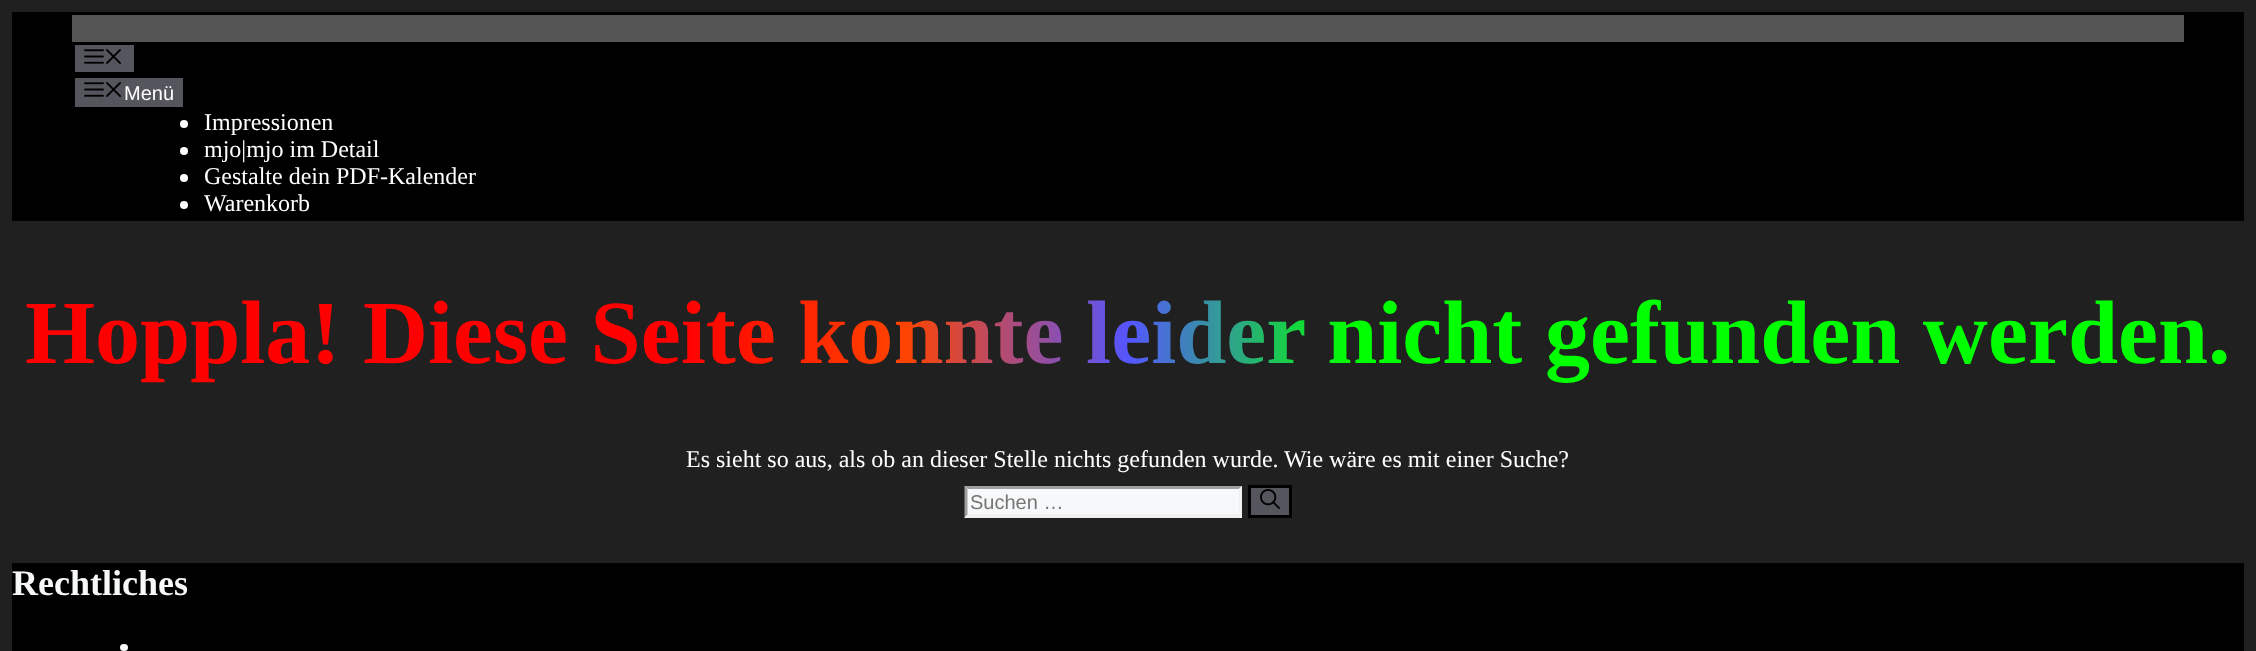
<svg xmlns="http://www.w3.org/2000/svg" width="2256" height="651">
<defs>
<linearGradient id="g1" gradientUnits="userSpaceOnUse" x1="12" y1="333" x2="2244" y2="333"><stop offset="0" stop-color="#f00"/><stop offset="0.3" stop-color="#f00"/><stop offset="0.4" stop-color="#f40"/><stop offset="0.5" stop-color="#55f"/><stop offset="0.6" stop-color="#0f0"/><stop offset="1" stop-color="#0f0"/></linearGradient>
</defs>
<rect width="100%" height="100%" fill="#202020"/>
<rect x="12" y="12" width="2232" height="209" fill="#000"/>
<rect x="72" y="15" width="2112" height="27" fill="#555"/>
<rect x="75" y="45" width="59" height="27" fill="#55555e"/>
<image x="84" y="49" width="20" height="15" href="media/1.png"/>
<image x="106" y="49" width="15" height="15" href="media/2.png"/>
<rect x="75" y="78" width="108" height="29" fill="#55555e"/>
<image x="84" y="82" width="20" height="15" href="media/1.png"/>
<image x="106" y="82" width="15" height="15" href="media/2.png"/>
<text x="124" y="100" style="font-family:Liberation Sans;font-size:20px;fill:#fff">Menü</text>
<circle cx="184" cy="124" r="4" fill="#fff"/>
<text x="204" y="130" style="font-family:Liberation Serif;font-size:24px;fill:#fff">Impressionen</text>
<circle cx="184" cy="151" r="4" fill="#fff"/>
<text x="204" y="157" style="font-family:Liberation Serif;font-size:24px;fill:#fff">mjo|mjo im Detail</text>
<circle cx="184" cy="178" r="4" fill="#fff"/>
<text x="204" y="184" style="font-family:Liberation Serif;font-size:24px;fill:#fff">Gestalte dein PDF-Kalender</text>
<circle cx="184" cy="205" r="4" fill="#fff"/>
<text x="204" y="211" style="font-family:Liberation Serif;font-size:24px;fill:#fff">Warenkorb</text>
<text x="25" y="363" style="font-family:Liberation Serif;font-size:90.1px;font-weight:bold;fill:url(#g1)">Hoppla! Diese Seite konnte leider nicht gefunden werden.</text>
<text x="686" y="467" style="font-family:Liberation Serif;font-size:24px;fill:#fff">Es sieht so aus, als ob an dieser Stelle nichts gefunden wurde. Wie wäre es mit einer Suche?</text>
<rect x="965" y="486" width="277" height="32" fill="#f7f8f9"/>
<path d="M964 486h278l-3 3h-271z" fill="#a0a0a0"/>
<path d="M1242 486v31.5l-3-3v-25.5z" fill="#f0f0f0"/>
<path d="M1242 518h-278l4-4h271z" fill="#f0f0f0"/>
<path d="M964.5 517.5v-31.5l3 3v25.5z" fill="#a0a0a0"/>
<text x="970" y="509" style="font-family:Liberation Sans;font-size:20px;fill:#757575">Suchen …</text>
<rect x="1249.5" y="486.5" width="41" height="30" fill="#55555e" stroke="#000" stroke-width="3"/>
<image x="1260" y="489" width="20" height="20" href="media/3.png"/>
<rect x="12" y="563" width="2232" height="88" fill="#000"/>
<text x="12" y="595" style="font-family:Liberation Serif;font-size:36px;font-weight:bold;fill:#f7f8f9">Rechtliches</text>
<rect x="120" y="644" width="8" height="7" rx="3.5" fill="#f7f8f9"/>
</svg>
